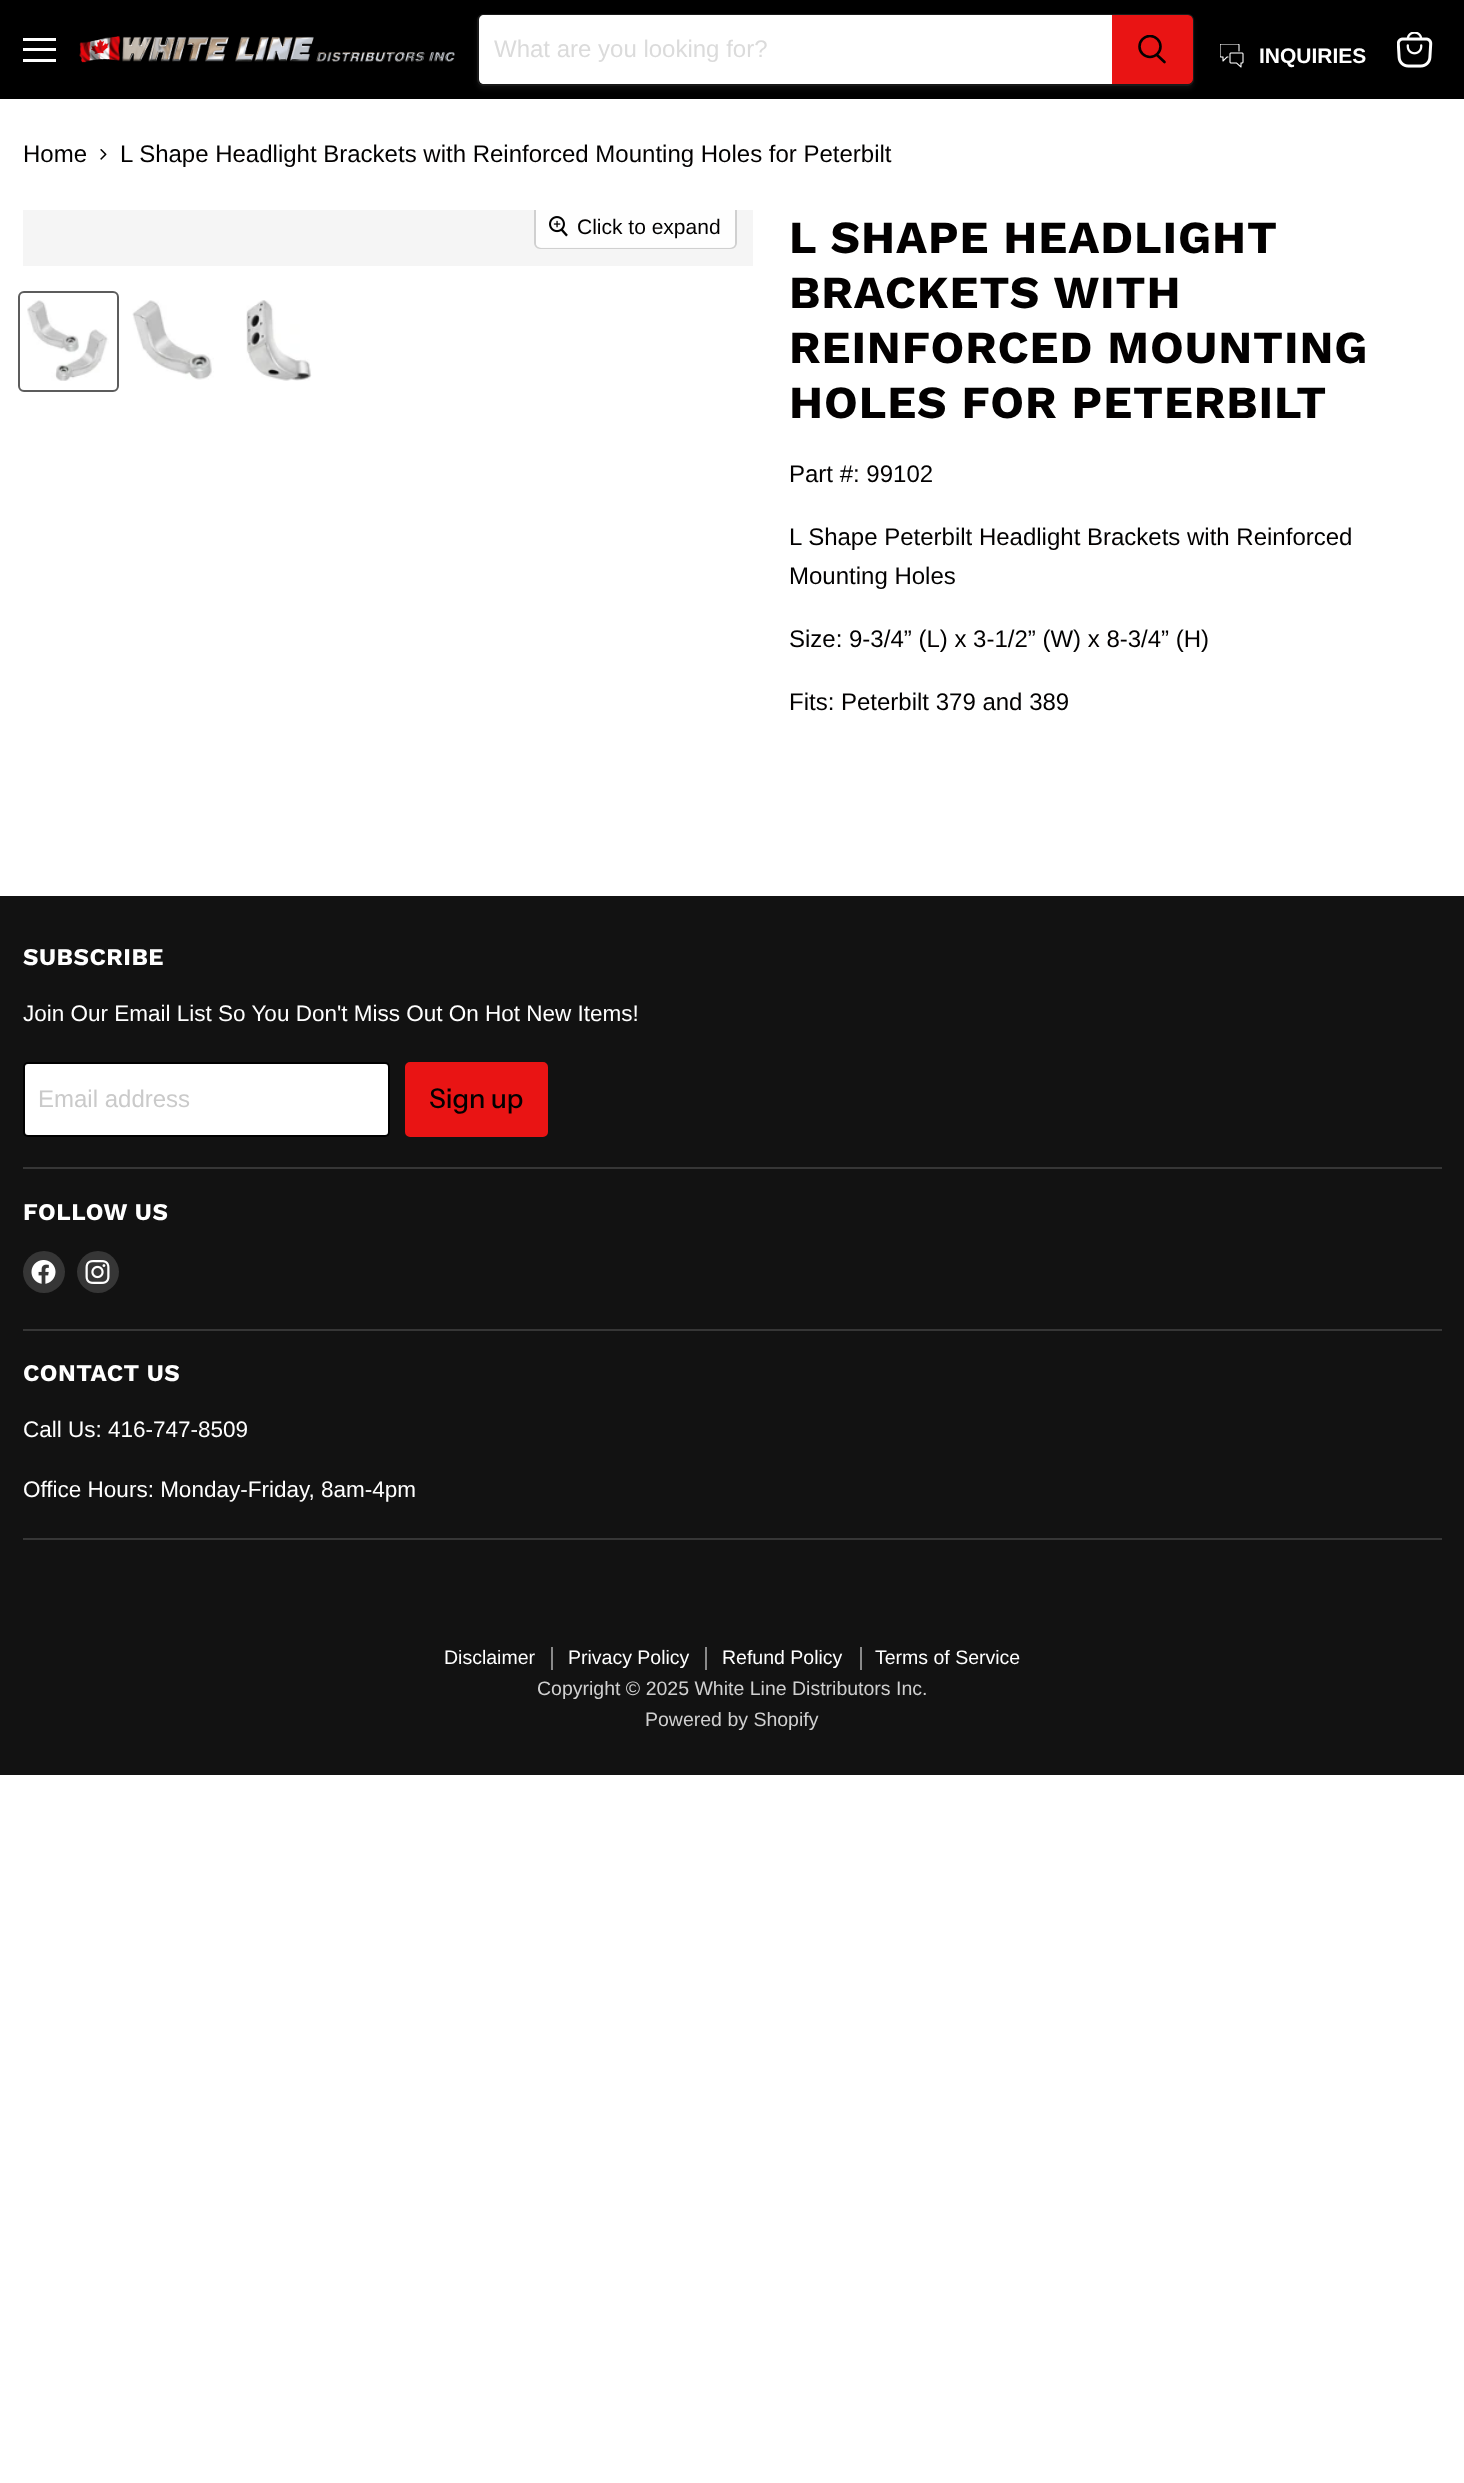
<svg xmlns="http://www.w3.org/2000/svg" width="1464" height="2483">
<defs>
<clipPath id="clip1"><path d="M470 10h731v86h-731zm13 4h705c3.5 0 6 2.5 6 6v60c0 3.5-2.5 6-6 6h-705c-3.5 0-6-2.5-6-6v-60c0-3.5 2.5-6 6-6z" clip-rule="evenodd"/></clipPath>
<clipPath id="clip2"><rect x="1137" y="35" width="30" height="31"/></clipPath>
<clipPath id="clip3"><rect x="23" y="210" width="730" height="56"/></clipPath>
</defs>
<rect width="100%" height="100%" fill="#fff"/>
<rect width="1464" height="99" fill="#000"/>
<rect x="23" y="38" width="33" height="3" fill="#fff"/>
<rect x="23" y="48" width="33" height="3" fill="#fff"/>
<rect x="23" y="59" width="33" height="3" fill="#fff"/>
<image x="79" y="36" width="376" height="27" href="media/1.png"/>
<g clip-path="url(#clip1)">
<rect x="477" y="17" width="717" height="72" rx="6" fill="#8080801c" filter="blur(2px)"/>
</g>
<rect x="478" y="15" width="715" height="70" rx="5" fill="none" stroke="#80808033" stroke-width="2"/>
<path d="M484 15h628v69h-628c-3 0-5-2-5-5v-59c0-3 2-5 5-5z" fill="#fff"/>
<text x="494" y="57" style="font-family:Liberation Sans;font-size:24px;fill:#dbdbdb">What are you looking for?</text>
<path d="M1113 16h75c2 0 4 2 4 4v59c0 2-2 4-4 4h-75z" fill="#e91414" stroke="#e91414" stroke-width="2"/>
<path d="M1164.5 62l-7.5-7" fill="none" stroke="#050000" stroke-width="2.6" stroke-linecap="round"/>
<g clip-path="url(#clip2)">
<circle cx="1150" cy="46.5" r="10.5" fill="none" stroke="#050000" stroke-width="2.6"/>
</g>
<image x="1220" y="44" width="24" height="24" href="media/2.png"/>
<text x="1259" y="63" style="font-family:Liberation Sans;font-size:21px;font-weight:bold;fill:#fff">INQUIRIES</text>
<image x="1397" y="32" width="36" height="36" href="media/3.png"/>
<text x="23" y="162" style="font-family:Liberation Sans;font-size:24px;fill:#020000">Home</text>
<image x="100" y="149" width="7" height="11" href="media/4.png"/>
<text x="120" y="162" style="font-family:Liberation Sans;font-size:24px;fill:#020000">L Shape Headlight Brackets with Reinforced Mounting Holes for Peterbilt</text>
<rect x="23" y="210" width="730" height="56" fill="#f5f5f5"/>
<g clip-path="url(#clip3)">
<rect x="535" y="205" width="201" height="43" rx="5" fill="none" stroke="#d0d0d0" stroke-width="2"/>
<rect x="536" y="206" width="199" height="42" rx="5" fill="#ffffffe6"/>
</g>
<image x="549" y="216" width="19" height="21" href="media/5.png"/>
<text x="577" y="234" style="font-family:Liberation Sans;font-size:21px;fill:#020000">Click to expand</text>
<rect x="19" y="292" width="99" height="99" rx="5" fill="none" stroke="#5c5c5c" stroke-width="2"/>
<image x="27" y="300" width="82" height="81" href="media/6.png"/>
<image x="132" y="300" width="82" height="80" href="media/7.png"/>
<image x="246" y="300" width="66" height="81" href="media/8.png"/>
<text x="789" y="253" style="font-family:Work Sans;font-size:45.9px;font-weight:bold;letter-spacing:0.9px;fill:#020000">L SHAPE HEADLIGHT</text>
<text x="789" y="308" style="font-family:Work Sans;font-size:45.9px;font-weight:bold;letter-spacing:0.9px;fill:#020000">BRACKETS WITH</text>
<text x="789" y="363" style="font-family:Work Sans;font-size:45.9px;font-weight:bold;letter-spacing:0.9px;fill:#020000">REINFORCED MOUNTING</text>
<text x="789" y="418" style="font-family:Work Sans;font-size:45.9px;font-weight:bold;letter-spacing:0.9px;fill:#020000">HOLES FOR PETERBILT</text>
<text x="789" y="482" style="font-family:Liberation Sans;font-size:24px;fill:#020000">Part #: 99102</text>
<text x="789" y="545" style="font-family:Liberation Sans;font-size:24px;fill:#020000">L Shape Peterbilt Headlight Brackets with Reinforced</text>
<text x="789" y="584" style="font-family:Liberation Sans;font-size:24px;fill:#020000">Mounting Holes</text>
<text x="789" y="647" style="font-family:Liberation Sans;font-size:24px;fill:#020000">Size: 9-3/4” (L) x 3-1/2” (W) x 8-3/4” (H)</text>
<text x="789" y="710" style="font-family:Liberation Sans;font-size:24px;fill:#020000">Fits: Peterbilt 379 and 389</text>
<rect y="896" width="1464" height="879" fill="#121212"/>
<rect x="23" y="1167" width="1419" height="2" fill="#363636"/>
<text x="23" y="965" style="font-family:Work Sans;font-size:24px;font-weight:bold;letter-spacing:0.5px;fill:#fff">SUBSCRIBE</text>
<text x="23" y="1021" style="font-family:Liberation Sans;font-size:22.5px;fill:#fff">Join Our Email List So You Don't Miss Out On Hot New Items!</text>
<rect x="24" y="1063" width="365" height="73" rx="4" fill="#fff" stroke="#000" stroke-width="2"/>
<text x="38" y="1107" style="font-family:Liberation Sans;font-size:24px;fill:#cacaca">Email address</text>
<rect x="406" y="1063" width="141" height="73" rx="4" fill="#e91414" stroke="#e91414" stroke-width="2"/>
<text x="429" y="1108" style="font-family:Instrument Sans;font-size:27px;font-weight:500;fill:#020000">Sign up</text>
<rect x="23" y="1329" width="1419" height="2" fill="#363636"/>
<text x="23" y="1220" style="font-family:Work Sans;font-size:24px;font-weight:bold;letter-spacing:0.5px;fill:#fff">FOLLOW US</text>
<circle cx="44" cy="1272" r="21" fill="#363636"/>
<image x="31" y="1260" width="25" height="24" href="media/9.png"/>
<circle cx="98" cy="1272" r="21" fill="#363636"/>
<image x="85" y="1260" width="25" height="24" href="media/10.png"/>
<rect x="23" y="1538" width="1419" height="2" fill="#363636"/>
<text x="23" y="1381" style="font-family:Work Sans;font-size:24px;font-weight:bold;letter-spacing:0.5px;fill:#fff">CONTACT US</text>
<text x="23" y="1437" style="font-family:Liberation Sans;font-size:22.5px;fill:#fff">Call Us: 416-747-8509</text>
<text x="23" y="1497" style="font-family:Liberation Sans;font-size:22.5px;fill:#fff">Office Hours: Monday-Friday, 8am-4pm</text>
<rect x="551" y="1647" width="2" height="23" fill="#898989"/>
<text x="444" y="1664" style="font-family:Liberation Sans;font-size:19.5px;fill:#fff">Disclaimer</text>
<rect x="705" y="1647" width="2" height="23" fill="#898989"/>
<text x="568" y="1664" style="font-family:Liberation Sans;font-size:19.5px;fill:#fff">Privacy Policy</text>
<rect x="860" y="1647" width="2" height="23" fill="#898989"/>
<text x="722" y="1664" style="font-family:Liberation Sans;font-size:19.5px;fill:#fff">Refund Policy</text>
<text x="875" y="1664" style="font-family:Liberation Sans;font-size:19.5px;fill:#fff">Terms of Service</text>
<text x="537" y="1695" style="font-family:Liberation Sans;font-size:19.5px;fill:#d0d0d0">Copyright © 2025 White Line Distributors Inc.</text>
<text x="645" y="1726" style="font-family:Liberation Sans;font-size:19.5px;fill:#d0d0d0">Powered by Shopify</text>
</svg>
